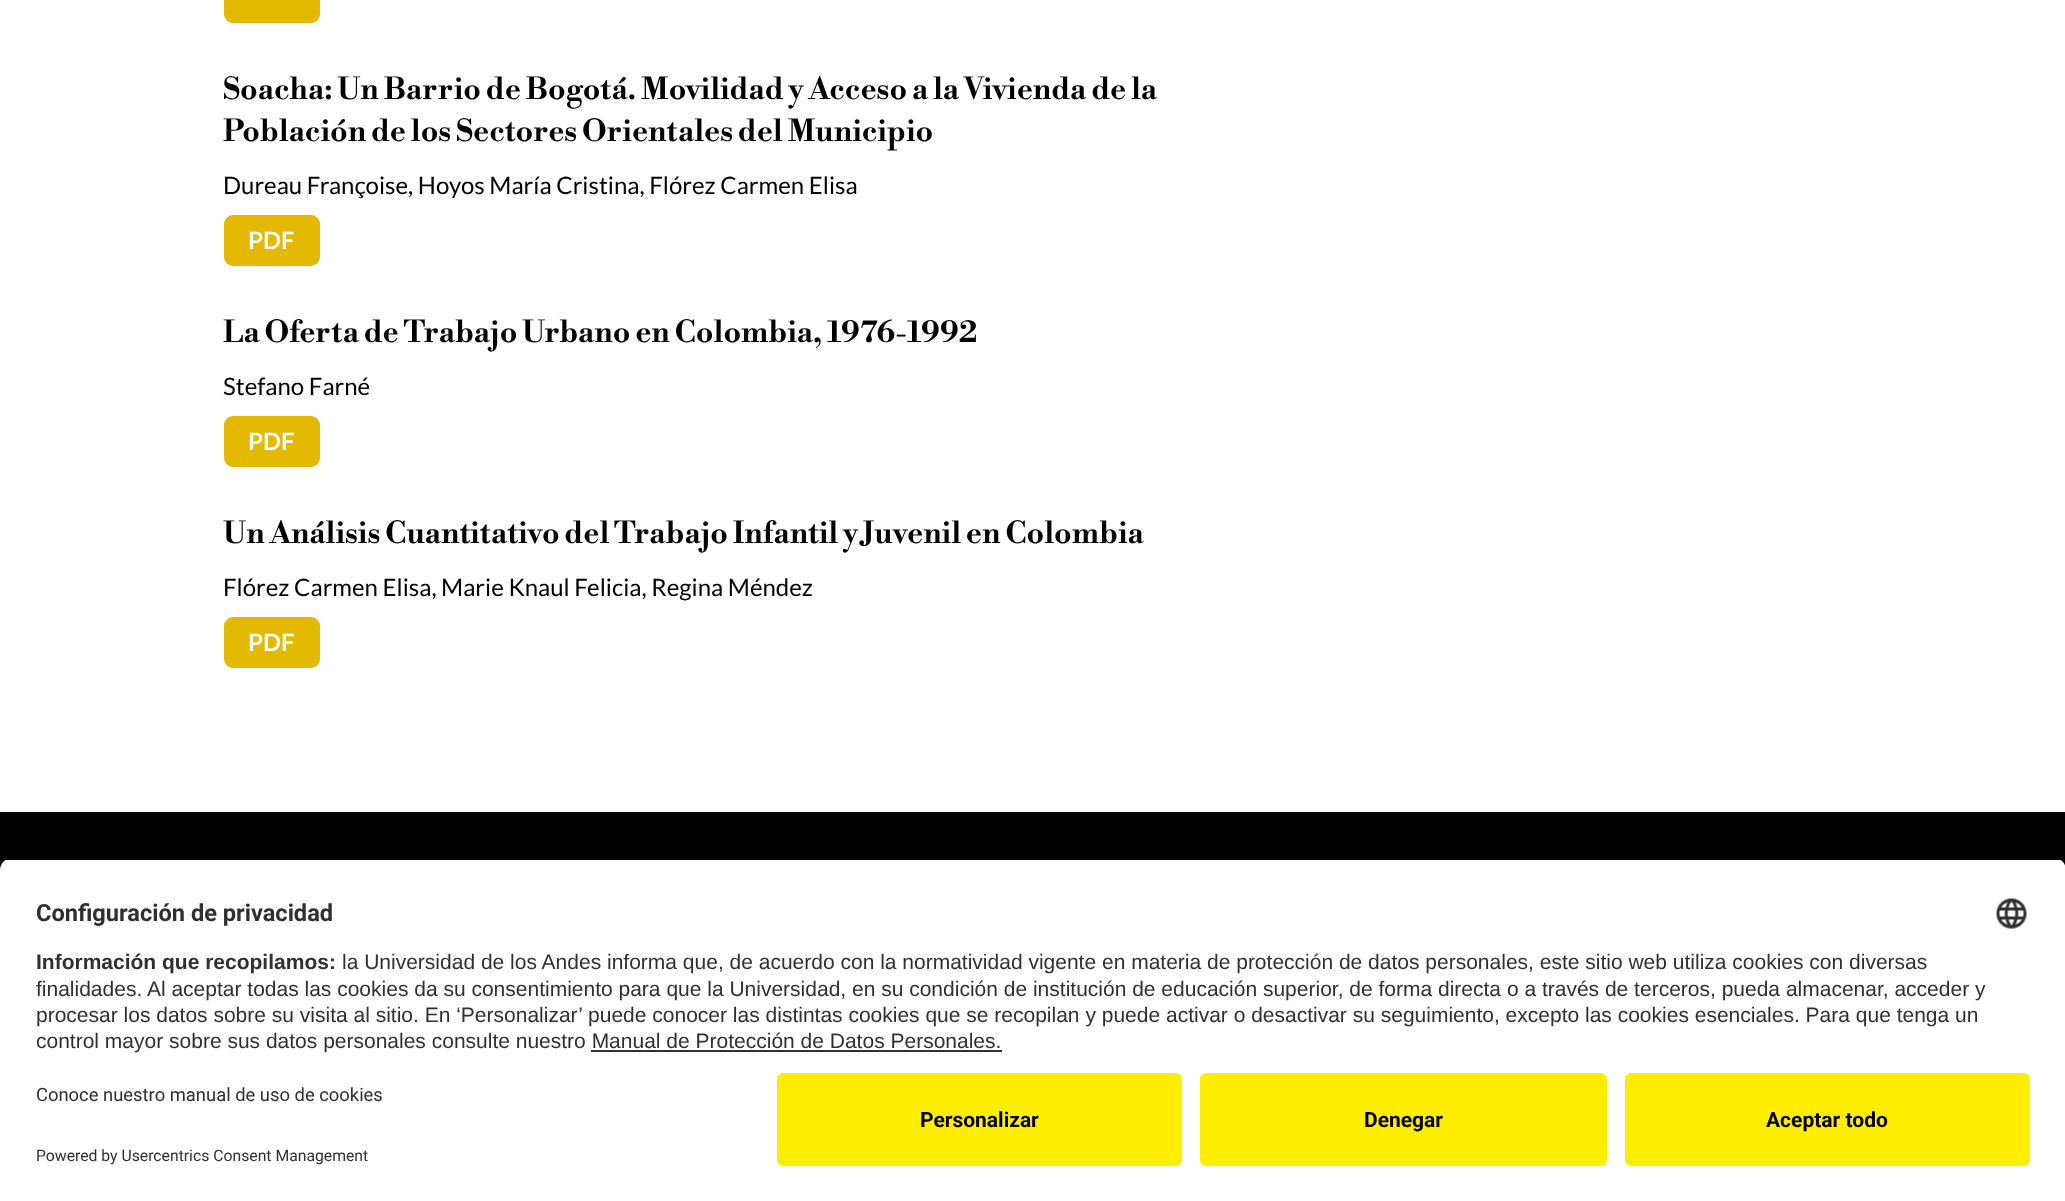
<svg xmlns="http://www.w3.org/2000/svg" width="2065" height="1201">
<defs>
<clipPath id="clip1"><path d="M12 858h2042c6.5 0 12 5.5 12 12v191h-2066v-191c0-6.5 5.5-12 12-12z"/></clipPath>
</defs>
<rect width="100%" height="100%" fill="#fff"/>
<rect x="224" y="-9" width="96" height="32" rx="9" fill="#e3b901"/>
<text x="223" y="99" style="font-family:Libre Bodoni;font-size:30px;font-weight:bold;fill:#000">Soacha: Un Barrio de Bogotá. Movilidad y Acceso a la Vivienda de la</text>
<text x="223" y="141" style="font-family:Libre Bodoni;font-size:30px;font-weight:bold;fill:#000">Población de los Sectores Orientales del Municipio</text>
<text x="223" y="194" style="font-family:Lato;font-size:24px;fill:#000">Dureau Françoise, Hoyos María Cristina, Flórez Carmen Elisa</text>
<rect x="224" y="215" width="96" height="51" rx="9" fill="#e3b901"/>
<text x="248" y="249" style="font-family:Lato;font-size:24px;font-weight:bold;fill:#fff">PDF</text>
<text x="223" y="342" style="font-family:Libre Bodoni;font-size:30px;font-weight:bold;fill:#000">La Oferta de Trabajo Urbano en Colombia, 1976-1992</text>
<text x="223" y="395" style="font-family:Lato;font-size:24px;fill:#000">Stefano Farné</text>
<rect x="224" y="416" width="96" height="51" rx="9" fill="#e3b901"/>
<text x="248" y="450" style="font-family:Lato;font-size:24px;font-weight:bold;fill:#fff">PDF</text>
<text x="223" y="543" style="font-family:Libre Bodoni;font-size:30px;font-weight:bold;fill:#000">Un Análisis Cuantitativo del Trabajo Infantil y Juvenil en Colombia</text>
<text x="223" y="596" style="font-family:Lato;font-size:24px;fill:#000">Flórez Carmen Elisa, Marie Knaul Felicia, Regina Méndez</text>
<rect x="224" y="617" width="96" height="51" rx="9" fill="#e3b901"/>
<text x="248" y="651" style="font-family:Lato;font-size:24px;font-weight:bold;fill:#fff">PDF</text>
<rect y="812" width="2065" height="58" fill="#000"/>
<g clip-path="url(#clip1)">
<rect y="860" width="2065" height="201" fill="#fff"/>
</g>
<text x="36" y="921" style="font-family:Roboto;font-size:23.6px;font-weight:bold;fill:#303030">Configuración de privacidad</text>
<image x="1996" y="898" width="31" height="31" href="media/1.png"/>
<text x="36" y="969" style="font-family:Liberation Sans;font-size:21px;font-weight:bold;fill:#303030">Información que recopilamos:</text>
<text x="342" y="969" style="font-family:Liberation Sans;font-size:21px;fill:#303030">la Universidad de los Andes informa que, de acuerdo con la normatividad vigente en materia de protección de datos personales, este sitio web utiliza cookies con diversas</text>
<text x="36" y="996" style="font-family:Liberation Sans;font-size:21px;fill:#303030">finalidades. Al aceptar todas las cookies da su consentimiento para que la Universidad, en su condición de institución de educación superior, de forma directa o a través de terceros, pueda almacenar, acceder y</text>
<text x="36" y="1022" style="font-family:Liberation Sans;font-size:21px;fill:#303030">procesar los datos sobre su visita al sitio. En ‘Personalizar’ puede conocer las distintas cookies que se recopilan y puede activar o desactivar su seguimiento, excepto las cookies esenciales. Para que tenga un</text>
<text x="36" y="1048" style="font-family:Liberation Sans;font-size:21px;fill:#303030">control mayor sobre sus datos personales consulte nuestro Manual de Protección de Datos Personales.</text>
<rect x="591" y="1050" width="411" height="2" fill="#303030"/>
<text x="36" y="1101" style="font-family:Roboto;font-size:18.4px;fill:#303030">Conoce nuestro manual de uso de cookies</text>
<text x="36" y="1161" style="font-family:Roboto;font-size:15.75px;fill:#303030">Powered by Usercentrics Consent Management</text>
<rect x="777" y="1073" width="405" height="93" rx="6" fill="#fe0"/>
<text x="920" y="1127" style="font-family:Roboto;font-size:21px;font-weight:bold;fill:#000">Personalizar</text>
<rect x="1200" y="1073" width="407" height="93" rx="6" fill="#fe0"/>
<text x="1364" y="1127" style="font-family:Roboto;font-size:21px;font-weight:bold;fill:#000">Denegar</text>
<rect x="1625" y="1073" width="405" height="93" rx="6" fill="#fe0"/>
<text x="1766" y="1127" style="font-family:Roboto;font-size:21px;font-weight:bold;fill:#000">Aceptar todo</text>
</svg>
